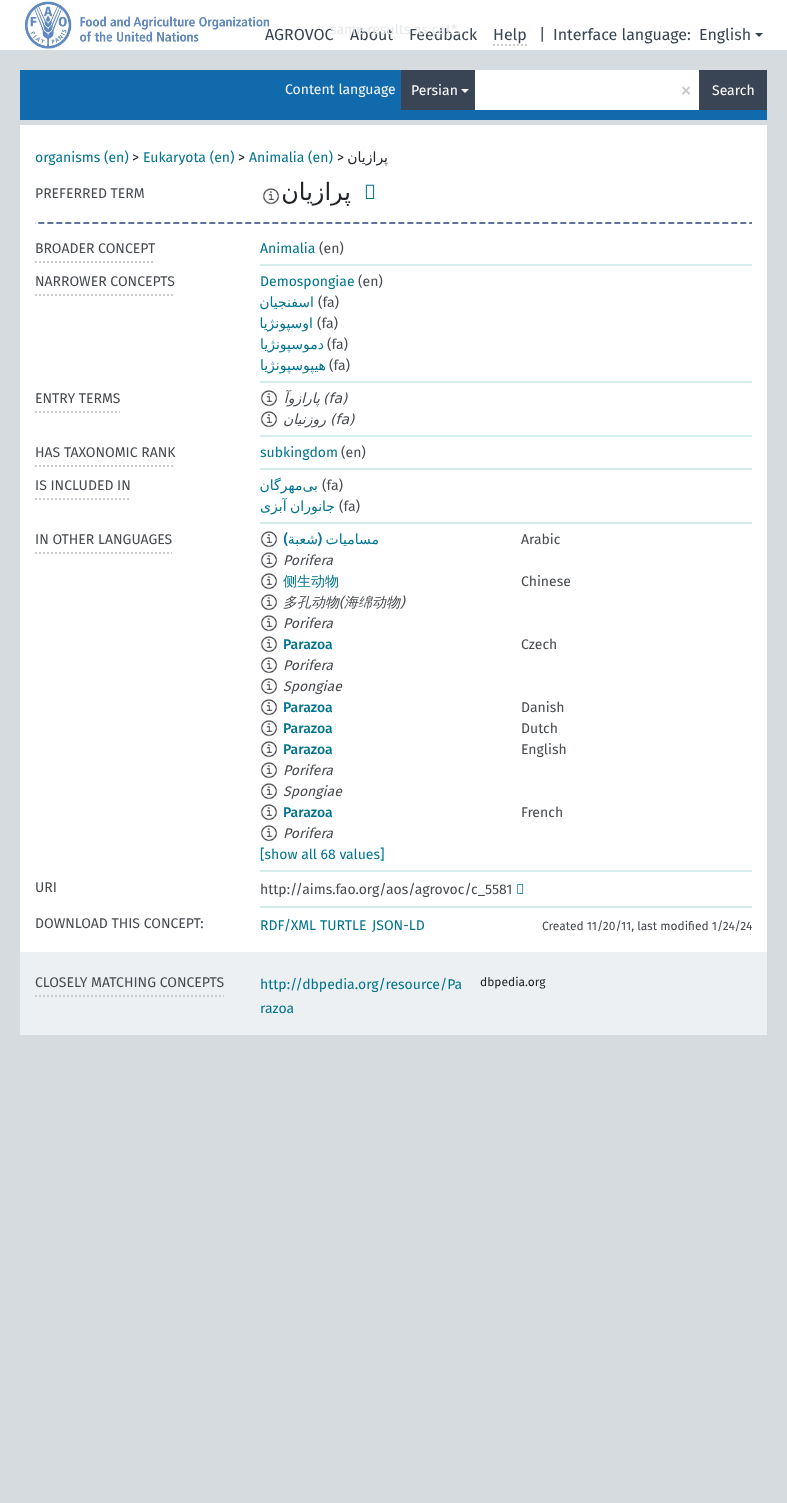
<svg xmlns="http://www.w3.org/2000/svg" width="787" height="1503">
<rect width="100%" height="100%" fill="#d5dbde"/>
<rect width="787" height="50" fill="#fff"/>
<image x="24" y="1" width="246" height="49" href="media/1.png"/>
<text x="265" y="40" style="font-family:Fira Sans;font-size:16px;fill:#394554">AGROVOC</text>
<text x="350" y="40" style="font-family:Fira Sans;font-size:16px;fill:#394554">About</text>
<text x="409" y="40" style="font-family:Fira Sans;font-size:16px;fill:#394554">Feedback</text>
<text x="330" y="34" style="font-family:Fira Sans;font-size:14px;fill:#e8e9eb">same results as cat*.</text>
<text x="493" y="40" style="font-family:Fira Sans;font-size:16px;fill:#394554">Help</text>
<path d="M493 45h34" fill="none" stroke="#ccc" stroke-width="2" stroke-dasharray="2 2"/>
<text x="539" y="40" style="font-family:Fira Sans;font-size:16px;fill:#394554">|</text>
<text x="553" y="40" style="font-family:Fira Sans;font-size:16px;fill:#394554">Interface language:</text>
<text x="699" y="40" style="font-family:Fira Sans;font-size:16px;fill:#394554">English</text>
<path d="M755 33h8l-4 4z" fill="#394554"/>
<rect x="20" y="70" width="747" height="50" fill="#116aab"/>
<text x="285" y="94" style="font-family:Fira Sans;font-size:14px;fill:#f3f8fb">Content language</text>
<rect x="401" y="70" width="74" height="40" fill="#394554"/>
<text x="411" y="95" style="font-family:Fira Sans;font-size:14px;fill:#fff">Persian</text>
<path d="M461 89h8l-4 4z" fill="#fff"/>
<rect x="475" y="70" width="224" height="40" fill="#fff"/>
<text x="680" y="98" style="font-family:Fira Sans;font-size:24px;fill:#ccc">×</text>
<rect x="699" y="70" width="68" height="40" fill="#394554"/>
<text x="712" y="95" style="font-family:Fira Sans;font-size:14px;fill:#fff">Search</text>
<rect x="20" y="125" width="747" height="827" fill="#fff"/>
<text x="35" y="162" style="font-family:Fira Sans;font-size:14px;fill:#00748f">organisms (en)</text>
<text x="132" y="162" style="font-family:Fira Sans;font-size:14px;fill:#212529">&gt;</text>
<text x="143" y="162" style="font-family:Fira Sans;font-size:14px;fill:#00748f">Eukaryota (en)</text>
<text x="238" y="162" style="font-family:Fira Sans;font-size:14px;fill:#212529">&gt;</text>
<text x="249" y="162" style="font-family:Fira Sans;font-size:14px;fill:#00748f">Animalia (en)</text>
<text x="337" y="162" style="font-family:Fira Sans;font-size:14px;fill:#212529">&gt;</text>
<text x="388" y="162" style="font-family:DejaVu Sans;font-size:14px;direction:rtl;fill:#212529">پرازیان</text>
<text x="35" y="198" style="font-family:Fira Sans;font-size:14px;fill:#474b4f">PREFERRED TERM</text>
<image x="262" y="188" width="18" height="17" href="media/2.png"/>
<text x="351" y="200" style="font-family:DejaVu Sans;font-size:24px;direction:rtl;fill:#212529">پرازیان</text>
<image x="365" y="184" width="10" height="15" href="media/3.png"/>
<image x="35" y="222" width="717" height="2" href="media/4.png"/>
<path d="M35 262h120" fill="none" stroke="#ccc" stroke-width="2" stroke-dasharray="2 2"/>
<text x="35" y="253" style="font-family:Fira Sans;font-size:14px;fill:#474b4f">BROADER CONCEPT</text>
<rect x="260" y="264" width="492" height="2" fill="#d4edeb"/>
<text x="260" y="253" style="font-family:Fira Sans;font-size:14px;fill:#00748f">Animalia</text>
<text x="319" y="253" style="font-family:Fira Sans;font-size:14px;fill:#474b4f">(en)</text>
<path d="M35 295h140" fill="none" stroke="#ccc" stroke-width="2" stroke-dasharray="2 2"/>
<text x="35" y="286" style="font-family:Fira Sans;font-size:14px;fill:#474b4f">NARROWER CONCEPTS</text>
<rect x="260" y="381" width="492" height="2" fill="#d4edeb"/>
<text x="260" y="286" style="font-family:Fira Sans;font-size:14px;fill:#00748f">Demospongiae</text>
<text x="358" y="286" style="font-family:Fira Sans;font-size:14px;fill:#474b4f">(en)</text>
<text x="314" y="307" style="font-family:DejaVu Sans;font-size:14px;direction:rtl;fill:#00748f">اسفنجیان</text>
<text x="318" y="307" style="font-family:Fira Sans;font-size:14px;fill:#474b4f">(fa)</text>
<text x="313" y="328" style="font-family:DejaVu Sans;font-size:14px;direction:rtl;fill:#00748f">اوسپونژیا</text>
<text x="317" y="328" style="font-family:Fira Sans;font-size:14px;fill:#474b4f">(fa)</text>
<text x="324" y="349" style="font-family:DejaVu Sans;font-size:14px;direction:rtl;fill:#00748f">دموسپونژیا</text>
<text x="327" y="349" style="font-family:Fira Sans;font-size:14px;fill:#474b4f">(fa)</text>
<text x="326" y="370" style="font-family:DejaVu Sans;font-size:14px;direction:rtl;fill:#00748f">هیپوسپونژیا</text>
<text x="329" y="370" style="font-family:Fira Sans;font-size:14px;fill:#474b4f">(fa)</text>
<path d="M35 412h85" fill="none" stroke="#ccc" stroke-width="2" stroke-dasharray="2 2"/>
<text x="35" y="403" style="font-family:Fira Sans;font-size:14px;fill:#474b4f">ENTRY TERMS</text>
<rect x="260" y="435" width="492" height="2" fill="#d4edeb"/>
<image x="260" y="390" width="18" height="17" href="media/5.png"/>
<text x="320" y="403" style="font-family:DejaVu Sans;font-size:14px;font-style:italic;direction:rtl;fill:#474b4f">پارازوآ</text>
<text x="323" y="403" style="font-family:DejaVu Sans;font-size:14px;font-style:italic;fill:#474b4f">(fa)</text>
<image x="260" y="411" width="18" height="17" href="media/2.png"/>
<text x="326" y="424" style="font-family:DejaVu Sans;font-size:14px;font-style:italic;direction:rtl;fill:#474b4f">روزنيان</text>
<text x="330" y="424" style="font-family:DejaVu Sans;font-size:14px;font-style:italic;fill:#474b4f">(fa)</text>
<path d="M35 466h140" fill="none" stroke="#ccc" stroke-width="2" stroke-dasharray="2 2"/>
<text x="35" y="457" style="font-family:Fira Sans;font-size:14px;fill:#474b4f">HAS TAXONOMIC RANK</text>
<rect x="260" y="468" width="492" height="2" fill="#d4edeb"/>
<text x="260" y="457" style="font-family:Fira Sans;font-size:14px;fill:#00748f">subkingdom</text>
<text x="341" y="457" style="font-family:Fira Sans;font-size:14px;fill:#474b4f">(en)</text>
<path d="M35 499h96" fill="none" stroke="#ccc" stroke-width="2" stroke-dasharray="2 2"/>
<text x="35" y="490" style="font-family:Fira Sans;font-size:14px;fill:#474b4f">IS INCLUDED IN</text>
<rect x="260" y="522" width="492" height="2" fill="#d4edeb"/>
<text x="318" y="490" style="font-family:DejaVu Sans;font-size:14px;direction:rtl;fill:#00748f">بی‌مهر‌گان</text>
<text x="322" y="490" style="font-family:Fira Sans;font-size:14px;fill:#474b4f">(fa)</text>
<text x="335" y="511" word-spacing="-1" style="font-family:DejaVu Sans;font-size:14px;direction:rtl;fill:#00748f">جانوران آبزی</text>
<text x="339" y="511" style="font-family:Fira Sans;font-size:14px;fill:#474b4f">(fa)</text>
<path d="M35 553h137" fill="none" stroke="#ccc" stroke-width="2" stroke-dasharray="2 2"/>
<text x="35" y="544" style="font-family:Fira Sans;font-size:14px;fill:#474b4f">IN OTHER LANGUAGES</text>
<rect x="260" y="870" width="492" height="2" fill="#d4edeb"/>
<image x="260" y="531" width="18" height="17" href="media/2.png"/>
<text x="288" y="544" style="font-family:Fira Sans;font-size:14px;font-weight:500;direction:rtl;fill:#00748f">)</text>
<text x="318" y="544" style="font-family:DejaVu Sans;font-size:14px;direction:rtl;fill:#00748f">شعبة</text>
<text x="322" y="544" style="font-family:Fira Sans;font-size:14px;font-weight:500;direction:rtl;fill:#00748f">(</text>
<text x="379" y="544" style="font-family:DejaVu Sans;font-size:14px;direction:rtl;fill:#00748f">مساميات</text>
<text x="521" y="544" style="font-family:Fira Sans;font-size:14px;fill:#474b4f">Arabic</text>
<image x="260" y="552" width="18" height="17" href="media/2.png"/>
<text x="283" y="565" style="font-family:Fira Sans;font-size:14px;font-style:italic;fill:#474b4f">Porifera</text>
<image x="260" y="573" width="18" height="17" href="media/2.png"/>
<text x="283" y="586" style="font-family:WenQuanYi Zen Hei;font-size:14px;font-weight:500;fill:#00748f">侧生动物</text>
<text x="521" y="586" style="font-family:Fira Sans;font-size:14px;fill:#474b4f">Chinese</text>
<image x="260" y="594" width="18" height="17" href="media/2.png"/>
<text x="283" y="607" style="font-family:WenQuanYi Zen Hei;font-size:14px;font-weight:500;font-style:italic;fill:#474b4f">多孔动物</text>
<text x="339" y="607" style="font-family:Fira Sans;font-size:14px;font-style:italic;fill:#474b4f">(</text>
<text x="344" y="607" style="font-family:WenQuanYi Zen Hei;font-size:14px;font-weight:500;font-style:italic;fill:#474b4f">海绵动物</text>
<text x="400" y="607" style="font-family:Fira Sans;font-size:14px;font-style:italic;fill:#474b4f">)</text>
<image x="260" y="615" width="18" height="17" href="media/2.png"/>
<text x="283" y="628" style="font-family:Fira Sans;font-size:14px;font-style:italic;fill:#474b4f">Porifera</text>
<image x="260" y="636" width="18" height="17" href="media/2.png"/>
<text x="283" y="649" style="font-family:Fira Sans;font-size:14px;font-weight:500;fill:#00748f">Parazoa</text>
<text x="521" y="649" style="font-family:Fira Sans;font-size:14px;fill:#474b4f">Czech</text>
<image x="260" y="657" width="18" height="17" href="media/2.png"/>
<text x="283" y="670" style="font-family:Fira Sans;font-size:14px;font-style:italic;fill:#474b4f">Porifera</text>
<image x="260" y="678" width="18" height="17" href="media/2.png"/>
<text x="283" y="691" style="font-family:Fira Sans;font-size:14px;font-style:italic;fill:#474b4f">Spongiae</text>
<image x="260" y="699" width="18" height="17" href="media/2.png"/>
<text x="283" y="712" style="font-family:Fira Sans;font-size:14px;font-weight:500;fill:#00748f">Parazoa</text>
<text x="521" y="712" style="font-family:Fira Sans;font-size:14px;fill:#474b4f">Danish</text>
<image x="260" y="720" width="18" height="17" href="media/2.png"/>
<text x="283" y="733" style="font-family:Fira Sans;font-size:14px;font-weight:500;fill:#00748f">Parazoa</text>
<text x="521" y="733" style="font-family:Fira Sans;font-size:14px;fill:#474b4f">Dutch</text>
<image x="260" y="741" width="18" height="17" href="media/2.png"/>
<text x="283" y="754" style="font-family:Fira Sans;font-size:14px;font-weight:500;fill:#00748f">Parazoa</text>
<text x="521" y="754" style="font-family:Fira Sans;font-size:14px;fill:#474b4f">English</text>
<image x="260" y="762" width="18" height="17" href="media/6.png"/>
<text x="283" y="775" style="font-family:Fira Sans;font-size:14px;font-style:italic;fill:#474b4f">Porifera</text>
<image x="260" y="783" width="18" height="17" href="media/7.png"/>
<text x="283" y="796" style="font-family:Fira Sans;font-size:14px;font-style:italic;fill:#474b4f">Spongiae</text>
<image x="260" y="804" width="18" height="17" href="media/2.png"/>
<text x="283" y="817" style="font-family:Fira Sans;font-size:14px;font-weight:500;fill:#00748f">Parazoa</text>
<text x="521" y="817" style="font-family:Fira Sans;font-size:14px;fill:#474b4f">French</text>
<image x="260" y="825" width="18" height="17" href="media/2.png"/>
<text x="283" y="838" style="font-family:Fira Sans;font-size:14px;font-style:italic;fill:#474b4f">Porifera</text>
<text x="260" y="859" style="font-family:Fira Sans;font-size:14px;fill:#00748f">[show all 68 values]</text>
<text x="35" y="892" style="font-family:Fira Sans;font-size:14px;fill:#474b4f">URI</text>
<rect x="260" y="906" width="492" height="2" fill="#d4edeb"/>
<text x="260" y="894" style="font-family:Fira Sans;font-size:14px;fill:#474b4f">http://aims.fao.org/aos/agrovoc/c_5581</text>
<image x="517" y="884" width="7" height="10" href="media/8.png"/>
<text x="35" y="928" style="font-family:Fira Sans;font-size:14px;fill:#474b4f">DOWNLOAD THIS CONCEPT:</text>
<text x="260" y="930" style="font-family:Fira Sans;font-size:14px;fill:#00748f">RDF/XML</text>
<text x="320" y="930" style="font-family:Fira Sans;font-size:14px;fill:#00748f">TURTLE</text>
<text x="372" y="930" style="font-family:Fira Sans;font-size:14px;fill:#00748f">JSON-LD</text>
<text x="542" y="930" style="font-family:Fira Sans;font-size:12px;fill:#474b4f">Created 11/20/11, last modified 1/24/24</text>
<rect x="20" y="952" width="747" height="83" fill="#edf0f2"/>
<path d="M35 996h189" fill="none" stroke="#ccc" stroke-width="2" stroke-dasharray="2 2"/>
<text x="35" y="987" style="font-family:Fira Sans;font-size:14px;fill:#474b4f">CLOSELY MATCHING CONCEPTS</text>
<text x="260" y="989" style="font-family:Fira Sans;font-size:14px;fill:#00748f">http://dbpedia.org/resource/Pa</text>
<text x="260" y="1013" style="font-family:Fira Sans;font-size:14px;fill:#00748f">razoa</text>
<text x="480" y="986" style="font-family:Fira Sans;font-size:12px;fill:#212529">dbpedia.org</text>
</svg>
